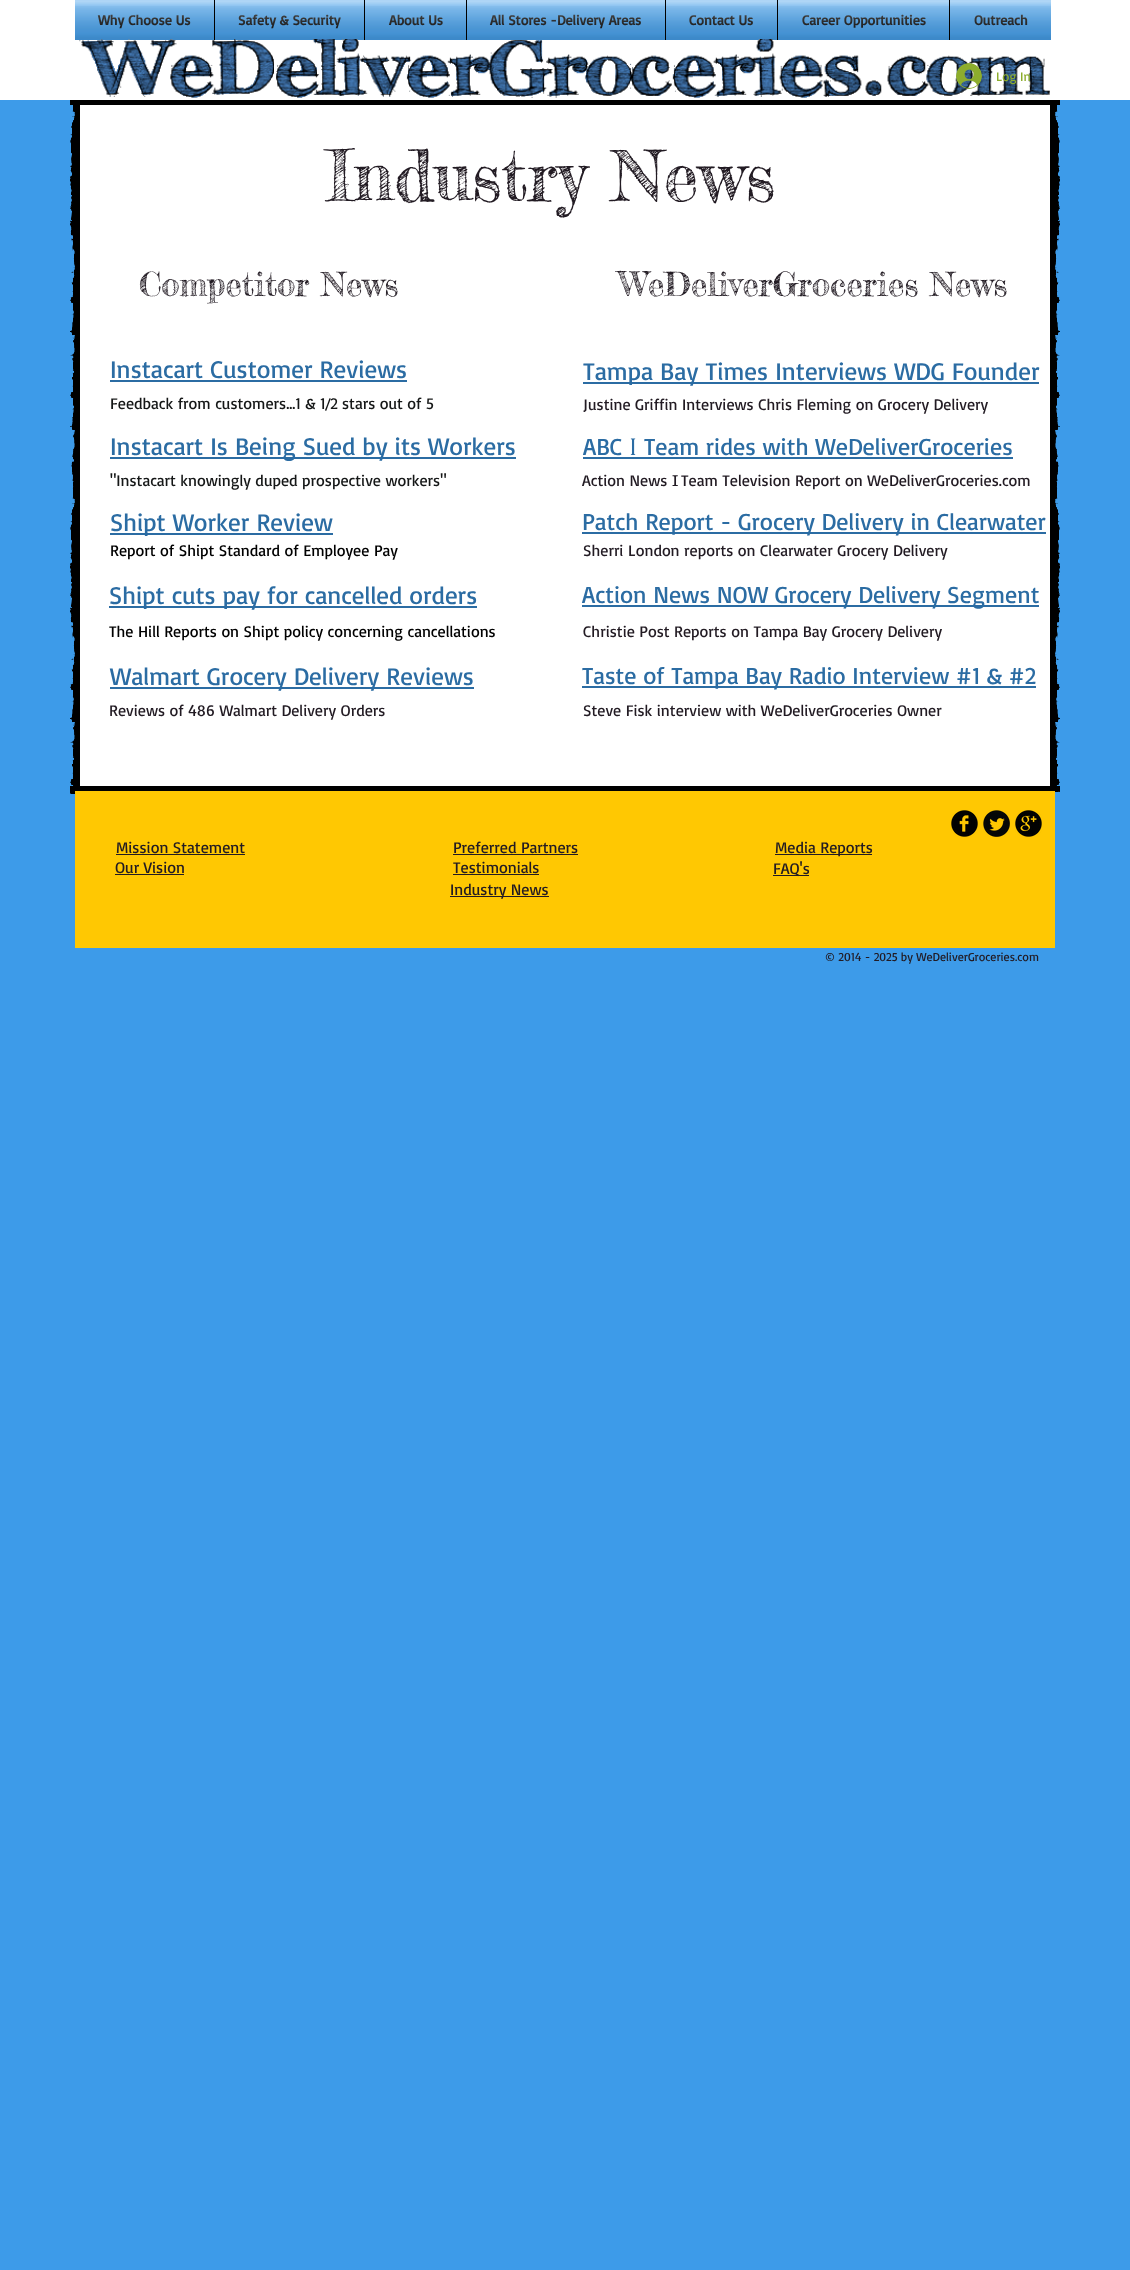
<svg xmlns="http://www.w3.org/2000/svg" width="1130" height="2270">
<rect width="100%" height="100%" fill="#3d9be9"/>
<rect width="1130" height="100" fill="#fff"/>
<rect x="75" width="139" height="40" fill="#3d9be9"/>
<text x="98" y="25" style="font-family:Basic;font-size:14px;font-weight:bold;fill:#000">Why Choose Us</text>
<image x="75" y="0" width="139" height="40" href="media/1.png"/>
<image x="75" y="6" width="139" height="34" href="media/2.png"/>
<rect x="215" width="149" height="40" fill="#3d9be9"/>
<rect x="214" width="1" height="40" fill="#000"/>
<text x="238" y="25" style="font-family:Basic;font-size:14px;font-weight:bold;fill:#000">Safety &amp; Security</text>
<image x="215" y="0" width="149" height="40" href="media/3.png"/>
<image x="215" y="6" width="149" height="34" href="media/4.png"/>
<rect x="365" width="101" height="40" fill="#3d9be9"/>
<rect x="364" width="1" height="40" fill="#000"/>
<text x="389" y="25" style="font-family:Basic;font-size:14px;font-weight:bold;fill:#000">About Us</text>
<image x="365" y="0" width="101" height="40" href="media/5.png"/>
<image x="365" y="6" width="101" height="34" href="media/6.png"/>
<rect x="467" width="198" height="40" fill="#3d9be9"/>
<rect x="466" width="1" height="40" fill="#000"/>
<text x="490" y="25" style="font-family:Basic;font-size:14px;font-weight:bold;fill:#000">All Stores -Delivery Areas</text>
<image x="467" y="0" width="198" height="40" href="media/7.png"/>
<image x="467" y="6" width="198" height="34" href="media/8.png"/>
<rect x="666" width="111" height="40" fill="#3d9be9"/>
<rect x="665" width="1" height="40" fill="#000"/>
<text x="689" y="25" style="font-family:Basic;font-size:14px;font-weight:bold;fill:#000">Contact Us</text>
<image x="666" y="0" width="111" height="40" href="media/9.png"/>
<image x="666" y="6" width="111" height="34" href="media/10.png"/>
<rect x="778" width="171" height="40" fill="#3d9be9"/>
<rect x="777" width="1" height="40" fill="#000"/>
<text x="802" y="25" style="font-family:Basic;font-size:14px;font-weight:bold;fill:#000">Career Opportunities</text>
<image x="778" y="0" width="171" height="40" href="media/11.png"/>
<image x="778" y="6" width="171" height="34" href="media/12.png"/>
<rect x="950" width="101" height="40" fill="#3d9be9"/>
<rect x="949" width="1" height="40" fill="#000"/>
<text x="974" y="25" style="font-family:Basic;font-size:14px;font-weight:bold;fill:#000">Outreach</text>
<image x="950" y="0" width="101" height="40" href="media/13.png"/>
<image x="950" y="6" width="101" height="34" href="media/14.png"/>
<image x="79" y="39" width="971" height="59" href="media/15.png"/>
<image x="956" y="63" width="26" height="26" href="media/16.png"/>
<text x="996" y="81" style="font-family:Basic;font-size:13px;fill:#8dad2d">Log In</text>
<rect x="80" y="105" width="970" height="681" fill="#fff"/>
<image x="70" y="100" width="990" height="5" href="media/17.png"/>
<image x="70" y="786" width="990" height="8" href="media/18.png"/>
<image x="70" y="105" width="10" height="681" href="media/19.png"/>
<image x="1050" y="105" width="10" height="681" href="media/20.png"/>
<text x="326" y="201" style="font-family:Fredericka the Great;font-size:70px;fill:#221b23">Industry News</text>
<text x="139" y="296" style="font-family:Fredericka the Great;font-size:33px;fill:#221b23">Competitor News</text>
<text x="619" y="296" style="font-family:Fredericka the Great;font-size:33px;fill:#221b23">WeDeliverGroceries News</text>
<text x="110" y="378" style="font-family:Basic;font-size:25px;fill:#2b6ca3">Instacart Customer Reviews</text>
<rect x="110" y="380" width="297" height="2" fill="#2b6ca3"/>
<text x="110" y="409" style="font-family:Basic;font-size:16px;fill:#151717">Feedback from customers...1 &amp;</text>
<text x="320" y="409" style="font-family:Basic;font-size:16px;letter-spacing:-1px;fill:#151717">1/2</text>
<text x="342" y="409" style="font-family:Basic;font-size:16px;fill:#151717">stars out of 5</text>
<rect x="583" y="382" width="456" height="2" fill="#2b6ca3"/>
<text x="583" y="380" style="font-family:Basic;font-size:25px;fill:#2b6ca3">Tampa Bay Times Interviews WDG Founder</text>
<text x="583" y="410" style="font-family:Basic;font-size:16px;fill:#221b23">Justine Griffin Interviews Chris Fleming on Grocery Delivery</text>
<rect x="110" y="457" width="406" height="2" fill="#2b6ca3"/>
<text x="110" y="455" style="font-family:Basic;font-size:25px;fill:#2b6ca3">Instacart Is Being Sued by its Workers</text>
<text x="110" y="486" style="font-family:Basic;font-size:16px;fill:#151717">"Instacart knowingly duped prospective workers"</text>
<text x="583" y="455" style="font-family:Basic;font-size:24px;fill:#2b6ca3">ABC</text>
<rect x="583" y="457" width="430" height="2" fill="#2b6ca3"/>
<text x="629" y="455" style="font-family:Caudex;font-size:24px;fill:#2b6ca3">I</text>
<text x="644" y="455" style="font-family:Basic;font-size:24px;fill:#2b6ca3">Team rides with WeDeliverGroceries</text>
<text x="582" y="486" style="font-family:Basic;font-size:16px;fill:#221b23">Action News</text>
<text x="672" y="486" style="font-family:'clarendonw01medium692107';font-size:16px;font-weight:300;fill:#221b23">I</text>
<text x="681" y="486" style="font-family:Basic;font-size:16px;fill:#221b23">Team Television Report on WeDeliverGroceries.com</text>
<rect x="110" y="533" width="223" height="2" fill="#2b6ca3"/>
<text x="110" y="531" style="font-family:Basic;font-size:25px;fill:#2b6ca3">Shipt Worker Review</text>
<rect x="582" y="532" width="464" height="2" fill="#2b6ca3"/>
<text x="582" y="530" style="font-family:Basic;font-size:24px;fill:#2b6ca3">Patch Report - Grocery Delivery in Clearwater</text>
<text x="110" y="556" style="font-family:Basic;font-size:16px;fill:#000">Report of Shipt Standard of Employee Pay</text>
<text x="583" y="556" style="font-family:Basic;font-size:16px;fill:#221b23">Sherri London reports on Clearwater Grocery Delivery</text>
<rect x="109" y="606" width="368" height="2" fill="#2b6ca3"/>
<text x="109" y="604" style="font-family:Basic;font-size:25px;fill:#2b6ca3">Shipt cuts pay for cancelled orders</text>
<rect x="582" y="605" width="457" height="2" fill="#2b6ca3"/>
<text x="582" y="603" style="font-family:Basic;font-size:24px;fill:#2b6ca3">Action News NOW Grocery Delivery Segment</text>
<text x="109" y="637" style="font-family:Basic;font-size:16px;fill:#000">The Hill Reports on Shipt policy concerning cancellations</text>
<text x="583" y="637" style="font-family:Basic;font-size:16px;fill:#221b23">Christie Post Reports on Tampa Bay Grocery Delivery</text>
<rect x="110" y="687" width="364" height="2" fill="#2b6ca3"/>
<text x="110" y="685" style="font-family:Basic;font-size:25px;fill:#2b6ca3">Walmart Grocery Delivery Reviews</text>
<rect x="582" y="686" width="454" height="2" fill="#2b6ca3"/>
<text x="582" y="684" style="font-family:Basic;font-size:24px;fill:#2b6ca3">Taste of Tampa Bay Radio Interview #1 &amp; #2</text>
<text x="109" y="716" style="font-family:Basic;font-size:16px;fill:#221b23">Reviews of 486 Walmart Delivery Orders</text>
<text x="583" y="716" style="font-family:Basic;font-size:16px;fill:#221b23">Steve Fisk interview with WeDeliverGroceries Owner</text>
<rect x="75" y="791" width="980" height="157" fill="#ffc802"/>
<image x="951" y="810" width="27" height="27" href="media/21.png"/>
<image x="983" y="810" width="27" height="27" href="media/22.png"/>
<image x="1015" y="810" width="27" height="27" href="media/23.png"/>
<text x="116" y="853" style="font-family:Basic;font-size:16px;fill:#221b23">Mission Statement</text>
<rect x="116" y="854" width="129" height="1" fill="#221b23"/>
<text x="453" y="853" style="font-family:Basic;font-size:16px;fill:#221b23">Preferred Partners</text>
<rect x="453" y="854" width="125" height="1" fill="#221b23"/>
<rect x="775" y="854" width="97" height="1" fill="#221b23"/>
<text x="775" y="853" style="font-family:Basic;font-size:16px;fill:#221b23">Media Reports</text>
<text x="115" y="873" style="font-family:Basic;font-size:16px;fill:#221b23">Our Vision</text>
<rect x="115" y="874" width="69" height="1" fill="#221b23"/>
<text x="453" y="873" style="font-family:Basic;font-size:16px;fill:#221b23">Testimonials</text>
<rect x="453" y="874" width="86" height="1" fill="#221b23"/>
<rect x="773" y="875" width="36" height="1" fill="#221b23"/>
<text x="773" y="874" style="font-family:Basic;font-size:16px;fill:#221b23">FAQ's</text>
<rect x="450" y="896" width="99" height="1" fill="#221b23"/>
<text x="450" y="895" style="font-family:Basic;font-size:16px;fill:#221b23">Industry News</text>
<text x="825" y="961" style="font-family:Basic;font-size:12px;fill:#221b23">© 2014 - 2025 by WeDeliverGroceries.com</text>
</svg>
